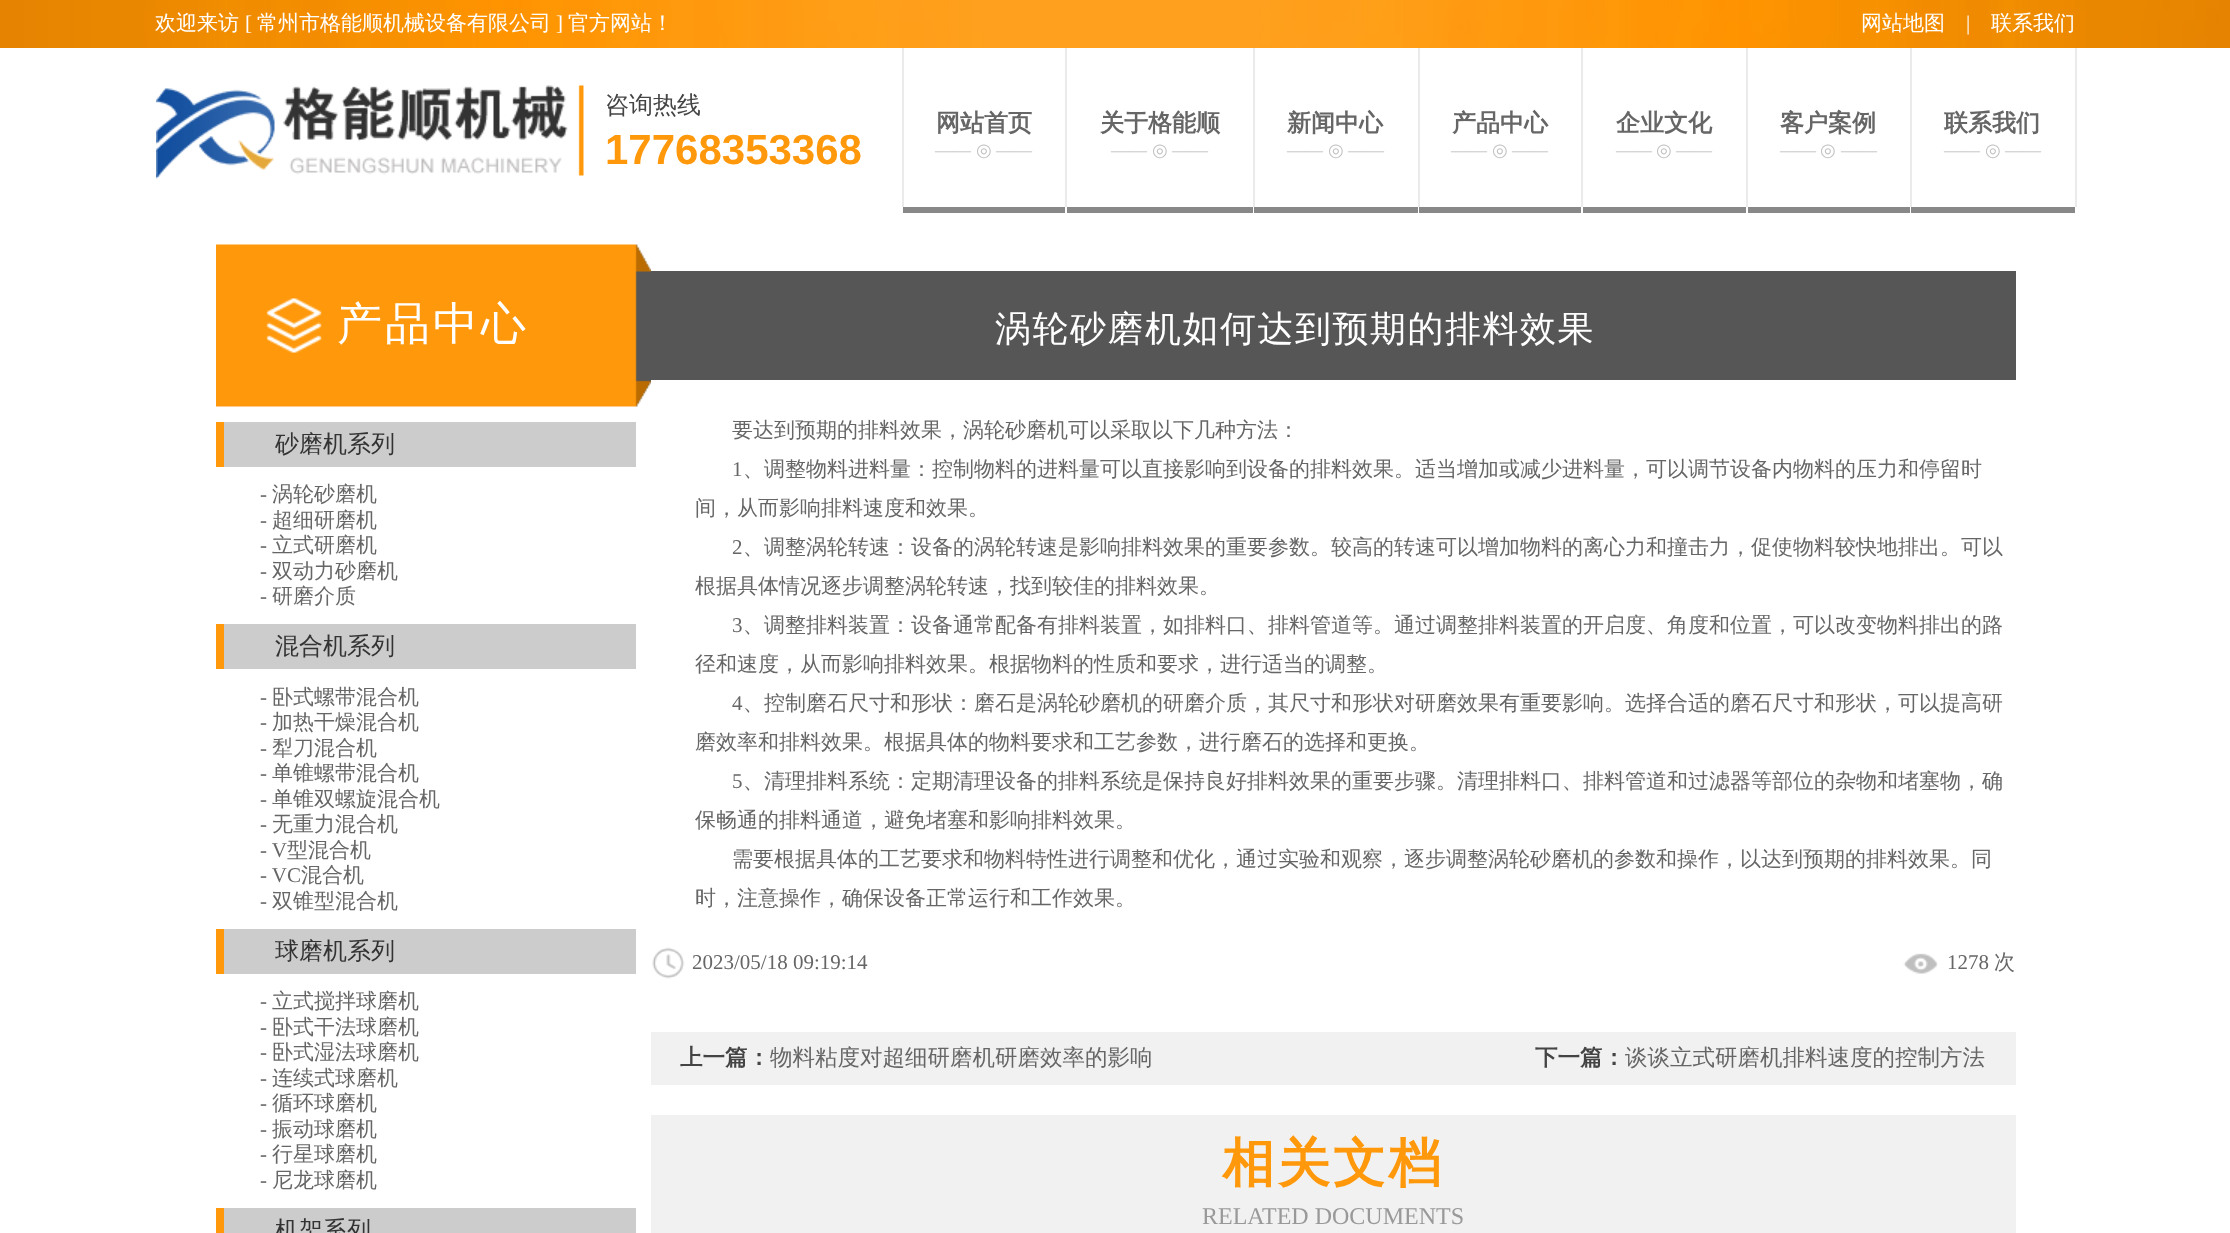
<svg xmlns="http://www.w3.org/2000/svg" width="2230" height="1233">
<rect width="100%" height="100%" fill="#fff"/>
<image x="0" y="0" width="2230" height="48" href="media/1.png"/>
<text x="155" y="30" style="font-family:WenQuanYi Zen Hei;font-size:21px;font-weight:500;fill:#fff">欢迎来访</text>
<text x="245" y="30" style="font-family:Liberation Serif;font-size:21px;fill:#fff">[</text>
<text x="257" y="30" style="font-family:WenQuanYi Zen Hei;font-size:21px;font-weight:500;fill:#fff">常州市格能顺机械设备有限公司</text>
<text x="556" y="30" style="font-family:Liberation Serif;font-size:21px;fill:#fff">]</text>
<text x="568" y="30" style="font-family:WenQuanYi Zen Hei;font-size:21px;font-weight:500;fill:#fff">官方网站！</text>
<text x="1861" y="30" style="font-family:WenQuanYi Zen Hei;font-size:21px;font-weight:500;fill:#fff">网站地图</text>
<text x="1966" y="30" style="font-family:Liberation Serif;font-size:21px;fill:#fff">|</text>
<text x="1991" y="30" style="font-family:WenQuanYi Zen Hei;font-size:21px;font-weight:500;fill:#fff">联系我们</text>
<image x="156" y="85" width="428" height="94" href="media/2.png"/>
<text x="605" y="113" style="font-family:WenQuanYi Zen Hei;font-size:24px;font-weight:500;fill:#444">咨询热线</text>
<text x="605" y="164" style="font-family:Liberation Sans;font-size:42px;font-weight:bold;fill:#ff980b">17768353368</text>
<rect x="902" y="48" width="2" height="159" fill="#ebebeb"/>
<text x="936" y="131" style="font-family:WenQuanYi Zen Hei;font-size:24px;font-weight:bold;fill:#666">网站首页</text>
<text x="935" y="156" style="font-family:Liberation Serif;font-size:18px;fill:#c2c2c2">——</text>
<text x="976" y="156" style="font-family:DejaVu Sans;font-size:18px;fill:#c2c2c2">◎</text>
<text x="996" y="156" style="font-family:Liberation Serif;font-size:18px;fill:#c2c2c2">——</text>
<rect x="903" y="207" width="162" height="6" fill="#888"/>
<rect x="1065" y="48" width="2" height="159" fill="#ebebeb"/>
<text x="1100" y="131" style="font-family:WenQuanYi Zen Hei;font-size:24px;font-weight:bold;fill:#666">关于格能顺</text>
<text x="1111" y="156" style="font-family:Liberation Serif;font-size:18px;fill:#c2c2c2">——</text>
<text x="1152" y="156" style="font-family:DejaVu Sans;font-size:18px;fill:#c2c2c2">◎</text>
<text x="1172" y="156" style="font-family:Liberation Serif;font-size:18px;fill:#c2c2c2">——</text>
<rect x="1067" y="207" width="186" height="6" fill="#888"/>
<rect x="1253" y="48" width="2" height="159" fill="#ebebeb"/>
<text x="1287" y="131" style="font-family:WenQuanYi Zen Hei;font-size:24px;font-weight:bold;fill:#666">新闻中心</text>
<text x="1287" y="156" style="font-family:Liberation Serif;font-size:18px;fill:#c2c2c2">——</text>
<text x="1328" y="156" style="font-family:DejaVu Sans;font-size:18px;fill:#c2c2c2">◎</text>
<text x="1348" y="156" style="font-family:Liberation Serif;font-size:18px;fill:#c2c2c2">——</text>
<rect x="1254" y="207" width="164" height="6" fill="#888"/>
<rect x="1418" y="48" width="2" height="159" fill="#ebebeb"/>
<text x="1452" y="131" style="font-family:WenQuanYi Zen Hei;font-size:24px;font-weight:bold;fill:#666">产品中心</text>
<text x="1451" y="156" style="font-family:Liberation Serif;font-size:18px;fill:#c2c2c2">——</text>
<text x="1492" y="156" style="font-family:DejaVu Sans;font-size:18px;fill:#c2c2c2">◎</text>
<text x="1512" y="156" style="font-family:Liberation Serif;font-size:18px;fill:#c2c2c2">——</text>
<rect x="1419" y="207" width="162" height="6" fill="#888"/>
<rect x="1581" y="48" width="2" height="159" fill="#ebebeb"/>
<text x="1616" y="131" style="font-family:WenQuanYi Zen Hei;font-size:24px;font-weight:bold;fill:#666">企业文化</text>
<text x="1616" y="156" style="font-family:Liberation Serif;font-size:18px;fill:#c2c2c2">——</text>
<text x="1656" y="156" style="font-family:DejaVu Sans;font-size:18px;fill:#c2c2c2">◎</text>
<text x="1676" y="156" style="font-family:Liberation Serif;font-size:18px;fill:#c2c2c2">——</text>
<rect x="1583" y="207" width="163" height="6" fill="#888"/>
<rect x="1746" y="48" width="2" height="159" fill="#ebebeb"/>
<text x="1780" y="131" style="font-family:WenQuanYi Zen Hei;font-size:24px;font-weight:bold;fill:#666">客户案例</text>
<text x="1780" y="156" style="font-family:Liberation Serif;font-size:18px;fill:#c2c2c2">——</text>
<text x="1820" y="156" style="font-family:DejaVu Sans;font-size:18px;fill:#c2c2c2">◎</text>
<text x="1841" y="156" style="font-family:Liberation Serif;font-size:18px;fill:#c2c2c2">——</text>
<rect x="1748" y="207" width="162" height="6" fill="#888"/>
<rect x="2075" y="48" width="2" height="159" fill="#ebebeb"/>
<rect x="1910" y="48" width="2" height="159" fill="#ebebeb"/>
<text x="1944" y="131" style="font-family:WenQuanYi Zen Hei;font-size:24px;font-weight:bold;fill:#666">联系我们</text>
<text x="1944" y="156" style="font-family:Liberation Serif;font-size:18px;fill:#c2c2c2">——</text>
<text x="1985" y="156" style="font-family:DejaVu Sans;font-size:18px;fill:#c2c2c2">◎</text>
<text x="2005" y="156" style="font-family:Liberation Serif;font-size:18px;fill:#c2c2c2">——</text>
<rect x="1911" y="207" width="164" height="6" fill="#888"/>
<image x="216" y="244" width="435" height="163" href="media/3.png"/>
<text x="337" y="339" style="font-family:WenQuanYi Zen Hei;font-size:45px;font-weight:500;letter-spacing:3px;fill:#fff">产品中心</text>
<rect x="224" y="422" width="412" height="45" fill="#ccc"/>
<rect x="216" y="422" width="8" height="45" fill="#ff980b"/>
<text x="275" y="452" style="font-family:WenQuanYi Zen Hei;font-size:24px;font-weight:500;fill:#333">砂磨机系列</text>
<text x="260" y="501" style="font-family:Liberation Serif;font-size:21px;fill:#666">-</text>
<text x="272" y="501" style="font-family:WenQuanYi Zen Hei;font-size:21px;font-weight:500;fill:#666">涡轮砂磨机</text>
<text x="260" y="527" style="font-family:Liberation Serif;font-size:21px;fill:#666">-</text>
<text x="272" y="527" style="font-family:WenQuanYi Zen Hei;font-size:21px;font-weight:500;fill:#666">超细研磨机</text>
<text x="260" y="552" style="font-family:Liberation Serif;font-size:21px;fill:#666">-</text>
<text x="272" y="552" style="font-family:WenQuanYi Zen Hei;font-size:21px;font-weight:500;fill:#666">立式研磨机</text>
<text x="260" y="578" style="font-family:Liberation Serif;font-size:21px;fill:#666">-</text>
<text x="272" y="578" style="font-family:WenQuanYi Zen Hei;font-size:21px;font-weight:500;fill:#666">双动力砂磨机</text>
<text x="260" y="603" style="font-family:Liberation Serif;font-size:21px;fill:#666">-</text>
<text x="272" y="603" style="font-family:WenQuanYi Zen Hei;font-size:21px;font-weight:500;fill:#666">研磨介质</text>
<rect x="224" y="624" width="412" height="45" fill="#ccc"/>
<rect x="216" y="624" width="8" height="45" fill="#ff980b"/>
<text x="275" y="654" style="font-family:WenQuanYi Zen Hei;font-size:24px;font-weight:500;fill:#333">混合机系列</text>
<text x="260" y="704" style="font-family:Liberation Serif;font-size:21px;fill:#666">-</text>
<text x="272" y="704" style="font-family:WenQuanYi Zen Hei;font-size:21px;font-weight:500;fill:#666">卧式螺带混合机</text>
<text x="260" y="729" style="font-family:Liberation Serif;font-size:21px;fill:#666">-</text>
<text x="272" y="729" style="font-family:WenQuanYi Zen Hei;font-size:21px;font-weight:500;fill:#666">加热干燥混合机</text>
<text x="260" y="755" style="font-family:Liberation Serif;font-size:21px;fill:#666">-</text>
<text x="272" y="755" style="font-family:WenQuanYi Zen Hei;font-size:21px;font-weight:500;fill:#666">犁刀混合机</text>
<text x="260" y="780" style="font-family:Liberation Serif;font-size:21px;fill:#666">-</text>
<text x="272" y="780" style="font-family:WenQuanYi Zen Hei;font-size:21px;font-weight:500;fill:#666">单锥螺带混合机</text>
<text x="260" y="806" style="font-family:Liberation Serif;font-size:21px;fill:#666">-</text>
<text x="272" y="806" style="font-family:WenQuanYi Zen Hei;font-size:21px;font-weight:500;fill:#666">单锥双螺旋混合机</text>
<text x="260" y="831" style="font-family:Liberation Serif;font-size:21px;fill:#666">-</text>
<text x="272" y="831" style="font-family:WenQuanYi Zen Hei;font-size:21px;font-weight:500;fill:#666">无重力混合机</text>
<text x="260" y="857" style="font-family:Liberation Serif;font-size:21px;fill:#666">- V</text>
<text x="287" y="857" style="font-family:WenQuanYi Zen Hei;font-size:21px;font-weight:500;fill:#666">型混合机</text>
<text x="260" y="882" style="font-family:Liberation Serif;font-size:21px;fill:#666">- VC</text>
<text x="301" y="882" style="font-family:WenQuanYi Zen Hei;font-size:21px;font-weight:500;fill:#666">混合机</text>
<text x="260" y="908" style="font-family:Liberation Serif;font-size:21px;fill:#666">-</text>
<text x="272" y="908" style="font-family:WenQuanYi Zen Hei;font-size:21px;font-weight:500;fill:#666">双锥型混合机</text>
<rect x="224" y="929" width="412" height="45" fill="#ccc"/>
<rect x="216" y="929" width="8" height="45" fill="#ff980b"/>
<text x="275" y="959" style="font-family:WenQuanYi Zen Hei;font-size:24px;font-weight:500;fill:#333">球磨机系列</text>
<text x="260" y="1008" style="font-family:Liberation Serif;font-size:21px;fill:#666">-</text>
<text x="272" y="1008" style="font-family:WenQuanYi Zen Hei;font-size:21px;font-weight:500;fill:#666">立式搅拌球磨机</text>
<text x="260" y="1034" style="font-family:Liberation Serif;font-size:21px;fill:#666">-</text>
<text x="272" y="1034" style="font-family:WenQuanYi Zen Hei;font-size:21px;font-weight:500;fill:#666">卧式干法球磨机</text>
<text x="260" y="1059" style="font-family:Liberation Serif;font-size:21px;fill:#666">-</text>
<text x="272" y="1059" style="font-family:WenQuanYi Zen Hei;font-size:21px;font-weight:500;fill:#666">卧式湿法球磨机</text>
<text x="260" y="1085" style="font-family:Liberation Serif;font-size:21px;fill:#666">-</text>
<text x="272" y="1085" style="font-family:WenQuanYi Zen Hei;font-size:21px;font-weight:500;fill:#666">连续式球磨机</text>
<text x="260" y="1110" style="font-family:Liberation Serif;font-size:21px;fill:#666">-</text>
<text x="272" y="1110" style="font-family:WenQuanYi Zen Hei;font-size:21px;font-weight:500;fill:#666">循环球磨机</text>
<text x="260" y="1136" style="font-family:Liberation Serif;font-size:21px;fill:#666">-</text>
<text x="272" y="1136" style="font-family:WenQuanYi Zen Hei;font-size:21px;font-weight:500;fill:#666">振动球磨机</text>
<text x="260" y="1161" style="font-family:Liberation Serif;font-size:21px;fill:#666">-</text>
<text x="272" y="1161" style="font-family:WenQuanYi Zen Hei;font-size:21px;font-weight:500;fill:#666">行星球磨机</text>
<text x="260" y="1187" style="font-family:Liberation Serif;font-size:21px;fill:#666">-</text>
<text x="272" y="1187" style="font-family:WenQuanYi Zen Hei;font-size:21px;font-weight:500;fill:#666">尼龙球磨机</text>
<rect x="224" y="1208" width="412" height="25" fill="#ccc"/>
<rect x="216" y="1208" width="8" height="25" fill="#ff980b"/>
<text x="275" y="1238" style="font-family:WenQuanYi Zen Hei;font-size:24px;font-weight:500;fill:#333">机架系列</text>
<rect x="651" y="271" width="1365" height="109" fill="#565656"/>
<text x="995" y="341" style="font-family:WenQuanYi Zen Hei;font-size:36px;font-weight:500;letter-spacing:1.5px;fill:#fff">涡轮砂磨机如何达到预期的排料效果</text>
<text x="732" y="437" style="font-family:WenQuanYi Zen Hei;font-size:21px;font-weight:500;fill:#666">要达到预期的排料效果，涡轮砂磨机可以采取以下几种方法：</text>
<text x="732" y="476" style="font-family:Liberation Serif;font-size:21px;fill:#666">1</text>
<text x="743" y="476" style="font-family:WenQuanYi Zen Hei;font-size:21px;font-weight:500;fill:#666">、调整物料进料量：控制物料的进料量可以直接影响到设备的排料效果。适当增加或减少进料量，可以调节设备内物料的压力和停留时</text>
<text x="695" y="515" style="font-family:WenQuanYi Zen Hei;font-size:21px;font-weight:500;fill:#666">间，从而影响排料速度和效果。</text>
<text x="732" y="554" style="font-family:Liberation Serif;font-size:21px;fill:#666">2</text>
<text x="743" y="554" style="font-family:WenQuanYi Zen Hei;font-size:21px;font-weight:500;fill:#666">、调整涡轮转速：设备的涡轮转速是影响排料效果的重要参数。较高的转速可以增加物料的离心力和撞击力，促使物料较快地排出。可以</text>
<text x="695" y="593" style="font-family:WenQuanYi Zen Hei;font-size:21px;font-weight:500;fill:#666">根据具体情况逐步调整涡轮转速，找到较佳的排料效果。</text>
<text x="732" y="632" style="font-family:Liberation Serif;font-size:21px;fill:#666">3</text>
<text x="743" y="632" style="font-family:WenQuanYi Zen Hei;font-size:21px;font-weight:500;fill:#666">、调整排料装置：设备通常配备有排料装置，如排料口、排料管道等。通过调整排料装置的开启度、角度和位置，可以改变物料排出的路</text>
<text x="695" y="671" style="font-family:WenQuanYi Zen Hei;font-size:21px;font-weight:500;fill:#666">径和速度，从而影响排料效果。根据物料的性质和要求，进行适当的调整。</text>
<text x="732" y="710" style="font-family:Liberation Serif;font-size:21px;fill:#666">4</text>
<text x="743" y="710" style="font-family:WenQuanYi Zen Hei;font-size:21px;font-weight:500;fill:#666">、控制磨石尺寸和形状：磨石是涡轮砂磨机的研磨介质，其尺寸和形状对研磨效果有重要影响。选择合适的磨石尺寸和形状，可以提高研</text>
<text x="695" y="749" style="font-family:WenQuanYi Zen Hei;font-size:21px;font-weight:500;fill:#666">磨效率和排料效果。根据具体的物料要求和工艺参数，进行磨石的选择和更换。</text>
<text x="732" y="788" style="font-family:Liberation Serif;font-size:21px;fill:#666">5</text>
<text x="743" y="788" style="font-family:WenQuanYi Zen Hei;font-size:21px;font-weight:500;fill:#666">、清理排料系统：定期清理设备的排料系统是保持良好排料效果的重要步骤。清理排料口、排料管道和过滤器等部位的杂物和堵塞物，确</text>
<text x="695" y="827" style="font-family:WenQuanYi Zen Hei;font-size:21px;font-weight:500;fill:#666">保畅通的排料通道，避免堵塞和影响排料效果。</text>
<text x="732" y="866" style="font-family:WenQuanYi Zen Hei;font-size:21px;font-weight:500;fill:#666">需要根据具体的工艺要求和物料特性进行调整和优化，通过实验和观察，逐步调整涡轮砂磨机的参数和操作，以达到预期的排料效果。同</text>
<text x="695" y="905" style="font-family:WenQuanYi Zen Hei;font-size:21px;font-weight:500;fill:#666">时，注意操作，确保设备正常运行和工作效果。</text>
<image x="652" y="947" width="33" height="32" href="media/4.png"/>
<text x="692" y="969" style="font-family:Liberation Serif;font-size:21px;fill:#666">2023/05/18 09:19:14</text>
<image x="1903" y="953" width="35" height="21" href="media/5.png"/>
<text x="1947" y="969" style="font-family:Liberation Serif;font-size:21px;fill:#666">1278</text>
<text x="1994" y="969" style="font-family:WenQuanYi Zen Hei;font-size:21px;font-weight:500;fill:#666">次</text>
<rect x="651" y="1032" width="1365" height="53" fill="#f1f1f1"/>
<text x="680" y="1065" style="font-family:WenQuanYi Zen Hei;font-size:22.5px;font-weight:bold;fill:#444">上一篇：</text>
<text x="770" y="1065" style="font-family:WenQuanYi Zen Hei;font-size:22.5px;font-weight:500;fill:#666">物料粘度对超细研磨机研磨效率的影响</text>
<text x="1535" y="1065" style="font-family:WenQuanYi Zen Hei;font-size:22.5px;font-weight:bold;fill:#444">下一篇：</text>
<text x="1625" y="1065" style="font-family:WenQuanYi Zen Hei;font-size:22.5px;font-weight:500;fill:#666">谈谈立式研磨机排料速度的控制方法</text>
<rect x="651" y="1115" width="1365" height="118" fill="#f1f1f1"/>
<text x="1222" y="1181" style="font-family:WenQuanYi Zen Hei;font-size:52.5px;font-weight:bold;letter-spacing:3px;fill:#ff980b">相关文档</text>
<text x="1202" y="1224" style="font-family:Liberation Serif;font-size:24px;fill:#999">RELATED DOCUMENTS</text>
</svg>
